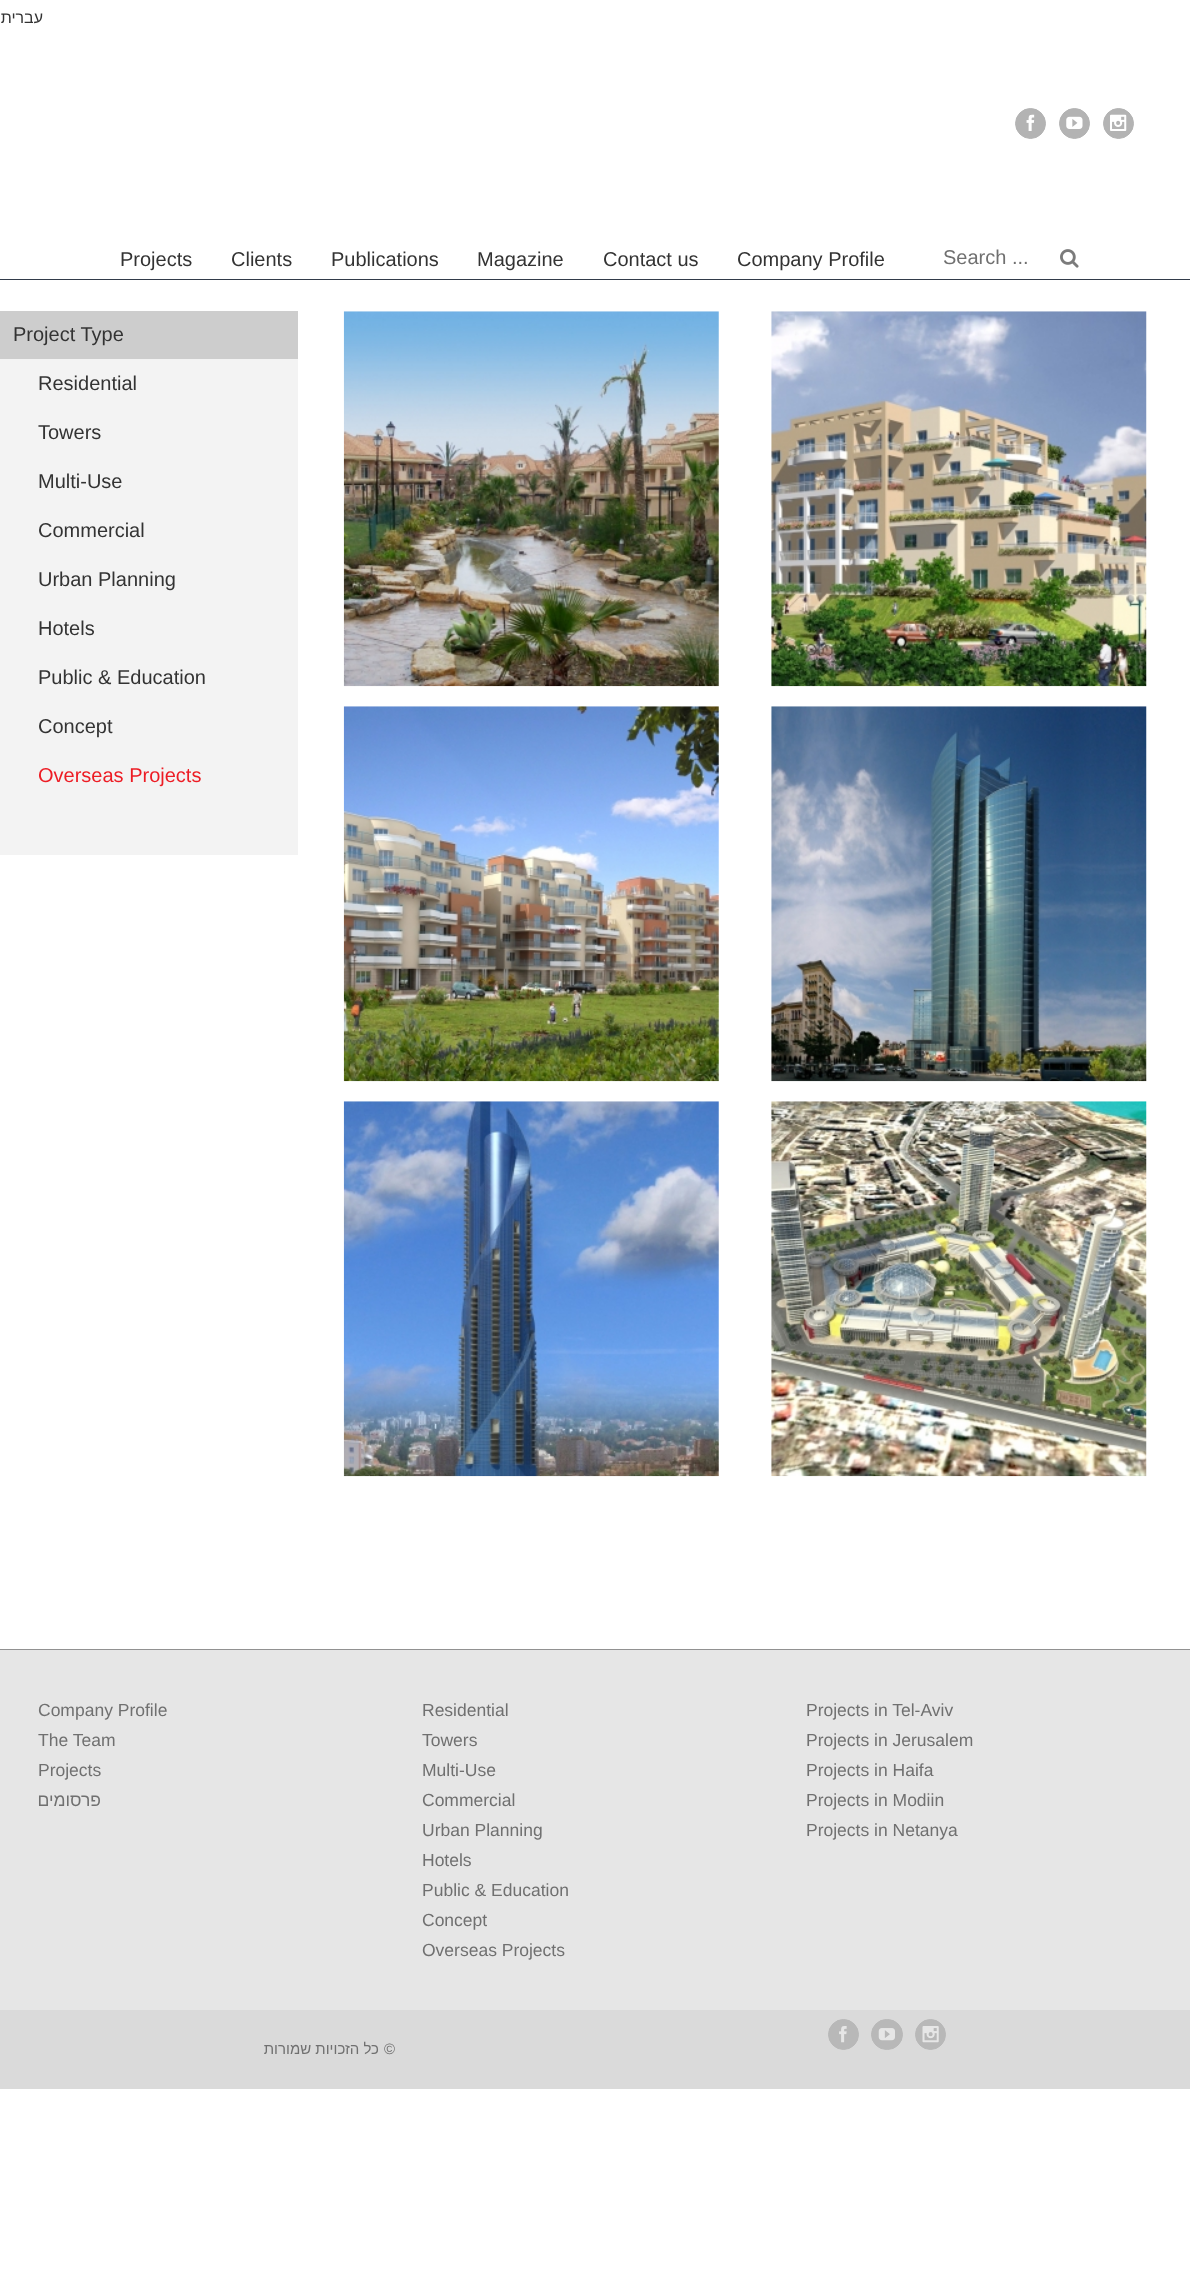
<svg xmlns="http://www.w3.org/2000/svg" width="1190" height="2271">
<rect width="100%" height="100%" fill="#fff"/>
<rect y="279" width="1190" height="1" fill="#323b4a"/>
<text x="43" y="23" style="font-family:Liberation Sans;font-size:16px;direction:rtl;fill:#333">עברית</text>
<circle cx="1030.5" cy="123.5" r="15" fill="#b3b3b3" stroke="#b3b3b3"/>
<image x="1026" y="114" width="9" height="17" href="media/1.png"/>
<circle cx="1074.5" cy="123.5" r="15" fill="#b3b3b3" stroke="#b3b3b3"/>
<image x="1066" y="116" width="17" height="13" href="media/2.png"/>
<circle cx="1118.5" cy="123.5" r="15" fill="#b3b3b3" stroke="#b3b3b3"/>
<image x="1110" y="114" width="17" height="17" href="media/3.png"/>
<text x="120" y="266" style="font-family:Liberation Sans;font-size:20px;fill:#333">Projects</text>
<text x="231" y="266" style="font-family:Liberation Sans;font-size:20px;fill:#333">Clients</text>
<text x="331" y="266" style="font-family:Liberation Sans;font-size:20px;fill:#333">Publications</text>
<text x="477" y="266" style="font-family:Liberation Sans;font-size:20px;fill:#333">Magazine</text>
<text x="603" y="266" style="font-family:Liberation Sans;font-size:20px;fill:#333">Contact us</text>
<text x="737" y="266" style="font-family:Liberation Sans;font-size:20px;fill:#333">Company Profile</text>
<text x="943" y="264" style="font-family:Liberation Sans;font-size:20px;fill:#707070">Search ...</text>
<image x="1060" y="249" width="19" height="19" href="media/4.png"/>
<rect y="359" width="298" height="496" fill="#f3f3f3"/>
<rect y="311" width="298" height="48" fill="#cdcdcd"/>
<text x="13" y="341" style="font-family:Liberation Sans;font-size:20px;fill:#333">Project Type</text>
<text x="38" y="390" style="font-family:Liberation Sans;font-size:20px;fill:#333">Residential</text>
<text x="38" y="439" style="font-family:Liberation Sans;font-size:20px;fill:#333">Towers</text>
<text x="38" y="488" style="font-family:Liberation Sans;font-size:20px;fill:#333">Multi-Use</text>
<text x="38" y="537" style="font-family:Liberation Sans;font-size:20px;fill:#333">Commercial</text>
<text x="38" y="586" style="font-family:Liberation Sans;font-size:20px;fill:#333">Urban Planning</text>
<text x="38" y="635" style="font-family:Liberation Sans;font-size:20px;fill:#333">Hotels</text>
<text x="38" y="684" style="font-family:Liberation Sans;font-size:20px;fill:#333">Public &amp; Education</text>
<text x="38" y="733" style="font-family:Liberation Sans;font-size:20px;fill:#333">Concept</text>
<text x="38" y="782" style="font-family:Liberation Sans;font-size:20px;fill:#ed1c24">Overseas Projects</text>
<image x="343" y="311" width="376" height="376" href="media/5.png"/>
<image x="771" y="311" width="376" height="376" href="media/6.png"/>
<image x="343" y="706" width="376" height="376" href="media/7.png"/>
<image x="771" y="706" width="376" height="376" href="media/8.png"/>
<image x="343" y="1101" width="376" height="376" href="media/9.png"/>
<image x="771" y="1101" width="376" height="376" href="media/10.png"/>
<rect y="1650" width="1190" height="360" fill="#e6e6e6"/>
<rect y="1649" width="1190" height="1" fill="#919191"/>
<text x="38" y="1716" style="font-family:Liberation Sans;font-size:17.5px;fill:#707070">Company Profile</text>
<text x="38" y="1746" style="font-family:Liberation Sans;font-size:17.5px;fill:#707070">The Team</text>
<text x="38" y="1776" style="font-family:Liberation Sans;font-size:17.5px;fill:#707070">Projects</text>
<text x="101" y="1806" style="font-family:Liberation Sans;font-size:17.5px;direction:rtl;fill:#707070">פרסומים</text>
<text x="422" y="1716" style="font-family:Liberation Sans;font-size:17.5px;fill:#707070">Residential</text>
<text x="422" y="1746" style="font-family:Liberation Sans;font-size:17.5px;fill:#707070">Towers</text>
<text x="422" y="1776" style="font-family:Liberation Sans;font-size:17.5px;fill:#707070">Multi-Use</text>
<text x="422" y="1806" style="font-family:Liberation Sans;font-size:17.5px;fill:#707070">Commercial</text>
<text x="422" y="1836" style="font-family:Liberation Sans;font-size:17.5px;fill:#707070">Urban Planning</text>
<text x="422" y="1866" style="font-family:Liberation Sans;font-size:17.5px;fill:#707070">Hotels</text>
<text x="422" y="1896" style="font-family:Liberation Sans;font-size:17.5px;fill:#707070">Public &amp; Education</text>
<text x="422" y="1926" style="font-family:Liberation Sans;font-size:17.5px;fill:#707070">Concept</text>
<text x="422" y="1956" style="font-family:Liberation Sans;font-size:17.5px;fill:#707070">Overseas Projects</text>
<text x="806" y="1716" style="font-family:Liberation Sans;font-size:17.5px;fill:#707070">Projects in Tel-Aviv</text>
<text x="806" y="1746" style="font-family:Liberation Sans;font-size:17.5px;fill:#707070">Projects in Jerusalem</text>
<text x="806" y="1776" style="font-family:Liberation Sans;font-size:17.5px;fill:#707070">Projects in Haifa</text>
<text x="806" y="1806" style="font-family:Liberation Sans;font-size:17.5px;fill:#707070">Projects in Modiin</text>
<text x="806" y="1836" style="font-family:Liberation Sans;font-size:17.5px;fill:#707070">Projects in Netanya</text>
<rect y="2010" width="1190" height="79" fill="#dadada"/>
<text x="379" y="2054" style="font-family:Liberation Sans;font-size:15px;direction:rtl;fill:#707070">כל הזכויות שמורות</text>
<text x="384" y="2054" style="font-family:Liberation Sans;font-size:15px;fill:#707070">©</text>
<circle cx="843.5" cy="2034.5" r="15" fill="#b8b8b8" stroke="#b8b8b8"/>
<image x="839" y="2026" width="8" height="17" href="media/11.png"/>
<rect x="871.5" y="2019.5" width="31" height="30" rx="15" fill="#b8b8b8" stroke="#b8b8b8"/>
<image x="878" y="2028" width="17" height="13" href="media/12.png"/>
<circle cx="930.5" cy="2034.5" r="15" fill="#b8b8b8" stroke="#b8b8b8"/>
<image x="922" y="2026" width="17" height="17" href="media/13.png"/>
</svg>
